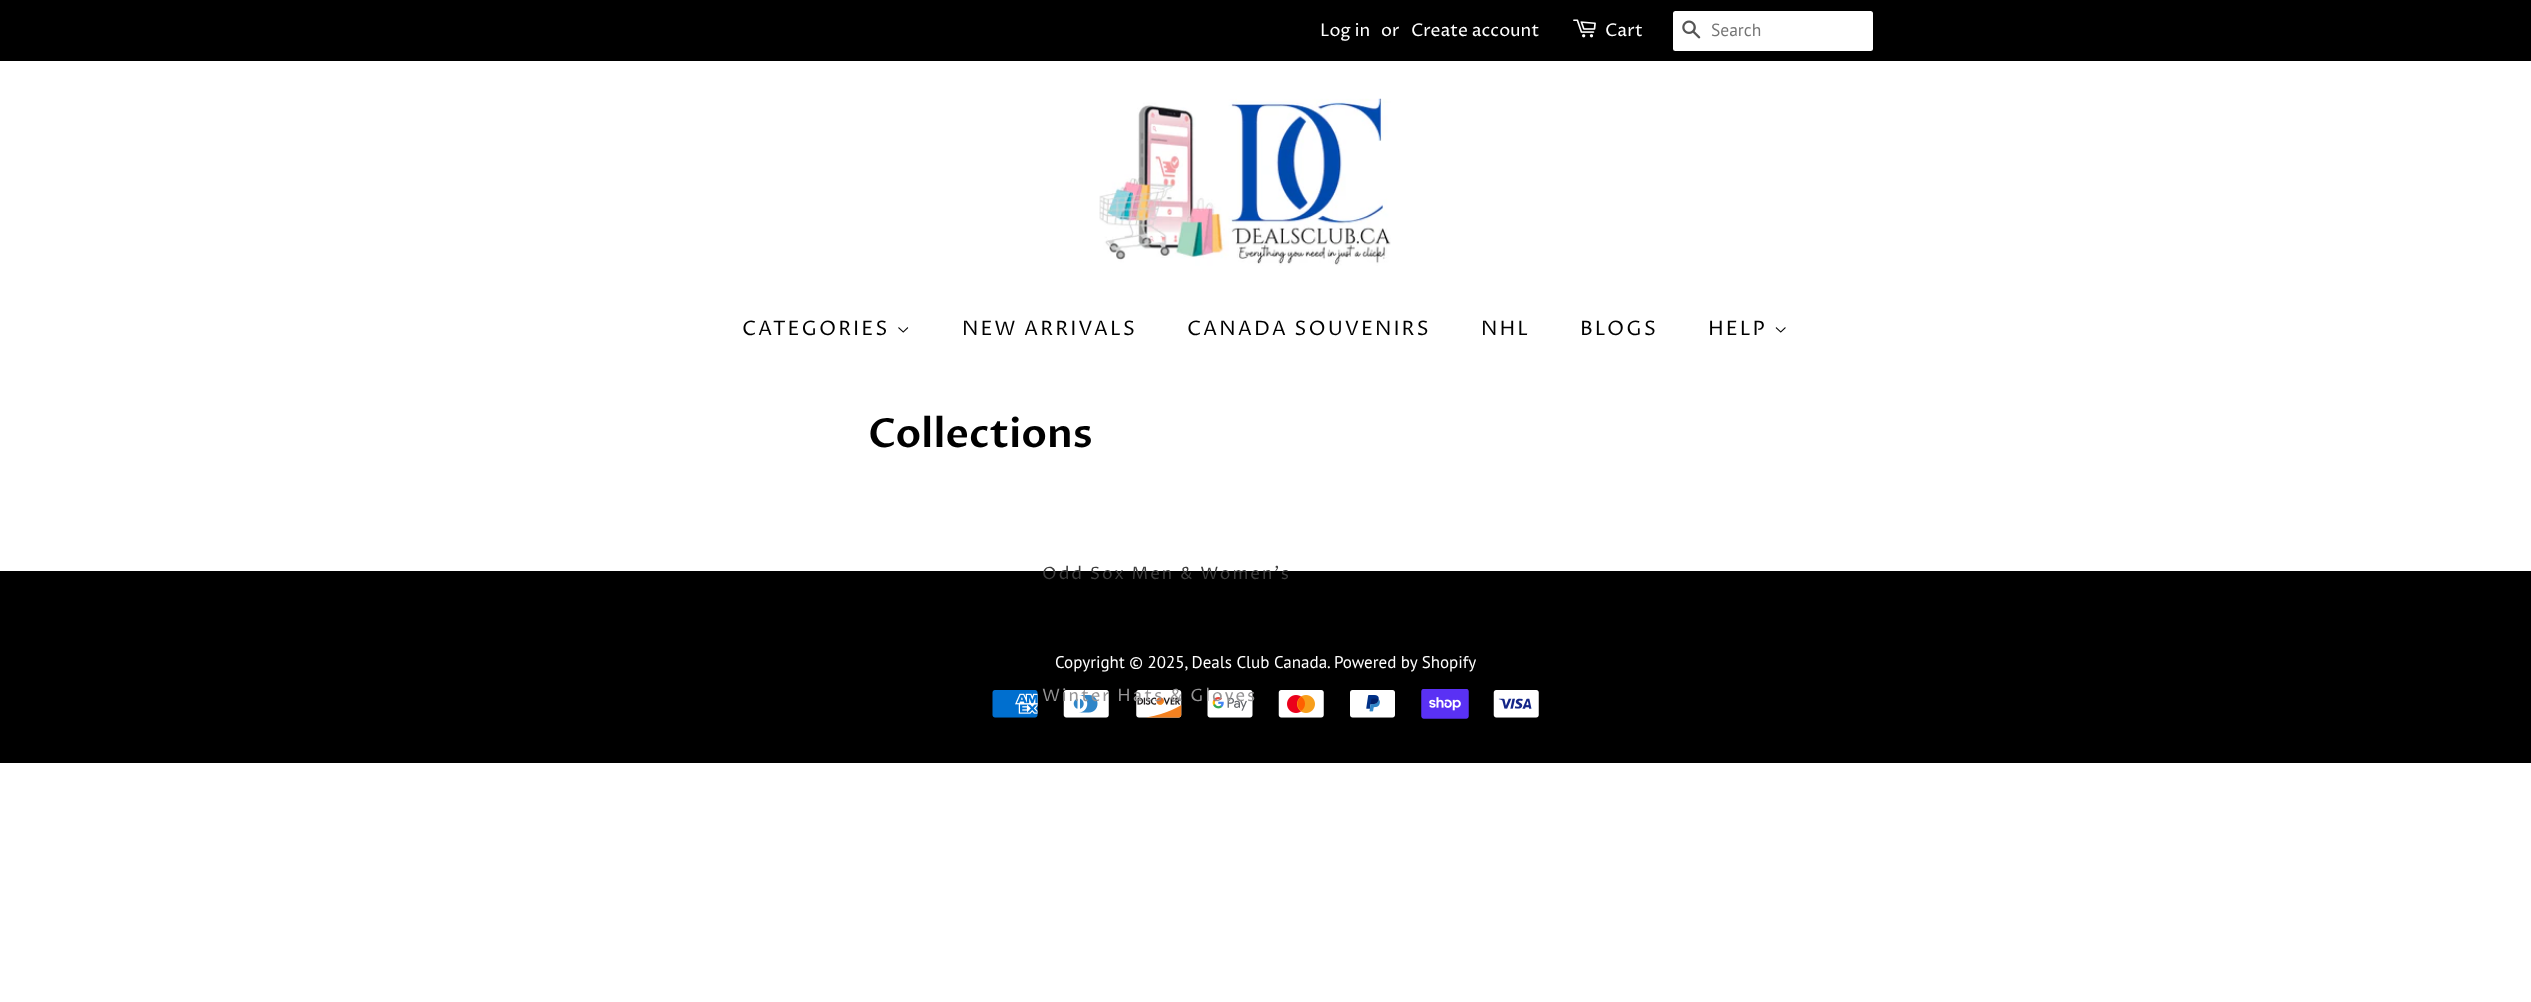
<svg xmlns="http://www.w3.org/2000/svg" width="2531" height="1002">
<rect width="100%" height="100%" fill="#fff"/>
<rect width="2531" height="61" fill="#000"/>
<text x="1320" y="36" style="font-family:Proza Libre;font-size:17.5px;fill:#fff">Log in</text>
<text x="1381" y="36" style="font-family:Proza Libre;font-size:17.5px;fill:#fff">or</text>
<text x="1411" y="36" style="font-family:Proza Libre;font-size:17.5px;fill:#fff">Create account</text>
<image x="1573" y="19" width="23" height="19" href="media/1.png"/>
<text x="1605" y="36" style="font-family:Proza Libre;font-size:17.5px;fill:#fff">Cart</text>
<rect x="1673" y="11" width="200" height="40" rx="2.5" fill="#fff"/>
<image x="1682" y="20" width="19" height="19" href="media/2.png"/>
<text x="1711" y="36" style="font-family:PT Sans;font-size:17.5px;fill:#757575">Search</text>
<image x="1099" y="98" width="292" height="168" href="media/3.png"/>
<text x="742" y="335" style="font-family:Proza Libre;font-size:20px;letter-spacing:2px;fill:#000">CATEGORIES</text>
<image x="898" y="327" width="11" height="6" href="media/4.png"/>
<rect y="571" width="2531" height="192" fill="#000"/>
<text x="1042" y="579" style="font-family:Proza Libre;font-size:17px;letter-spacing:2px;fill:#3e3e3e">Odd Sox Men &amp; Women's</text>
<image x="1063" y="690" width="46" height="28" href="media/7.png"/>
<image x="1136" y="690" width="46" height="28" href="media/8.png"/>
<image x="1207" y="690" width="46" height="28" href="media/9.png"/>
<text x="1042" y="701" style="font-family:Proza Libre;font-size:17px;letter-spacing:2px;fill:#949394">Winter Hats &amp; Gloves</text>
<text x="962" y="335" style="font-family:Proza Libre;font-size:20px;letter-spacing:2px;fill:#000">NEW ARRIVALS</text>
<text x="1187" y="335" style="font-family:Proza Libre;font-size:20px;letter-spacing:2px;fill:#000">CANADA SOUVENIRS</text>
<text x="1481" y="335" style="font-family:Proza Libre;font-size:20px;letter-spacing:2px;fill:#000">NHL</text>
<text x="1580" y="335" style="font-family:Proza Libre;font-size:20px;letter-spacing:2px;fill:#000">BLOGS</text>
<text x="1708" y="335" style="font-family:Proza Libre;font-size:20px;letter-spacing:2px;fill:#000">HELP</text>
<image x="1775" y="327" width="11" height="6" href="media/5.png"/>
<text x="868" y="447" style="font-family:Proza Libre;font-size:40px;font-weight:600;fill:#000">Collections</text>
<text x="1055" y="668" style="font-family:PT Sans;font-size:17px;fill:#fff">Copyright © 2025, Deals Club Canada. Powered by Shopify</text>
<image x="992" y="690" width="46" height="28" href="media/6.png"/>
<image x="1278" y="690" width="46" height="28" href="media/10.png"/>
<image x="1350" y="690" width="45" height="28" href="media/11.png"/>
<image x="1421" y="689" width="48" height="30" href="media/12.png"/>
<image x="1493" y="690" width="46" height="28" href="media/13.png"/>
</svg>
